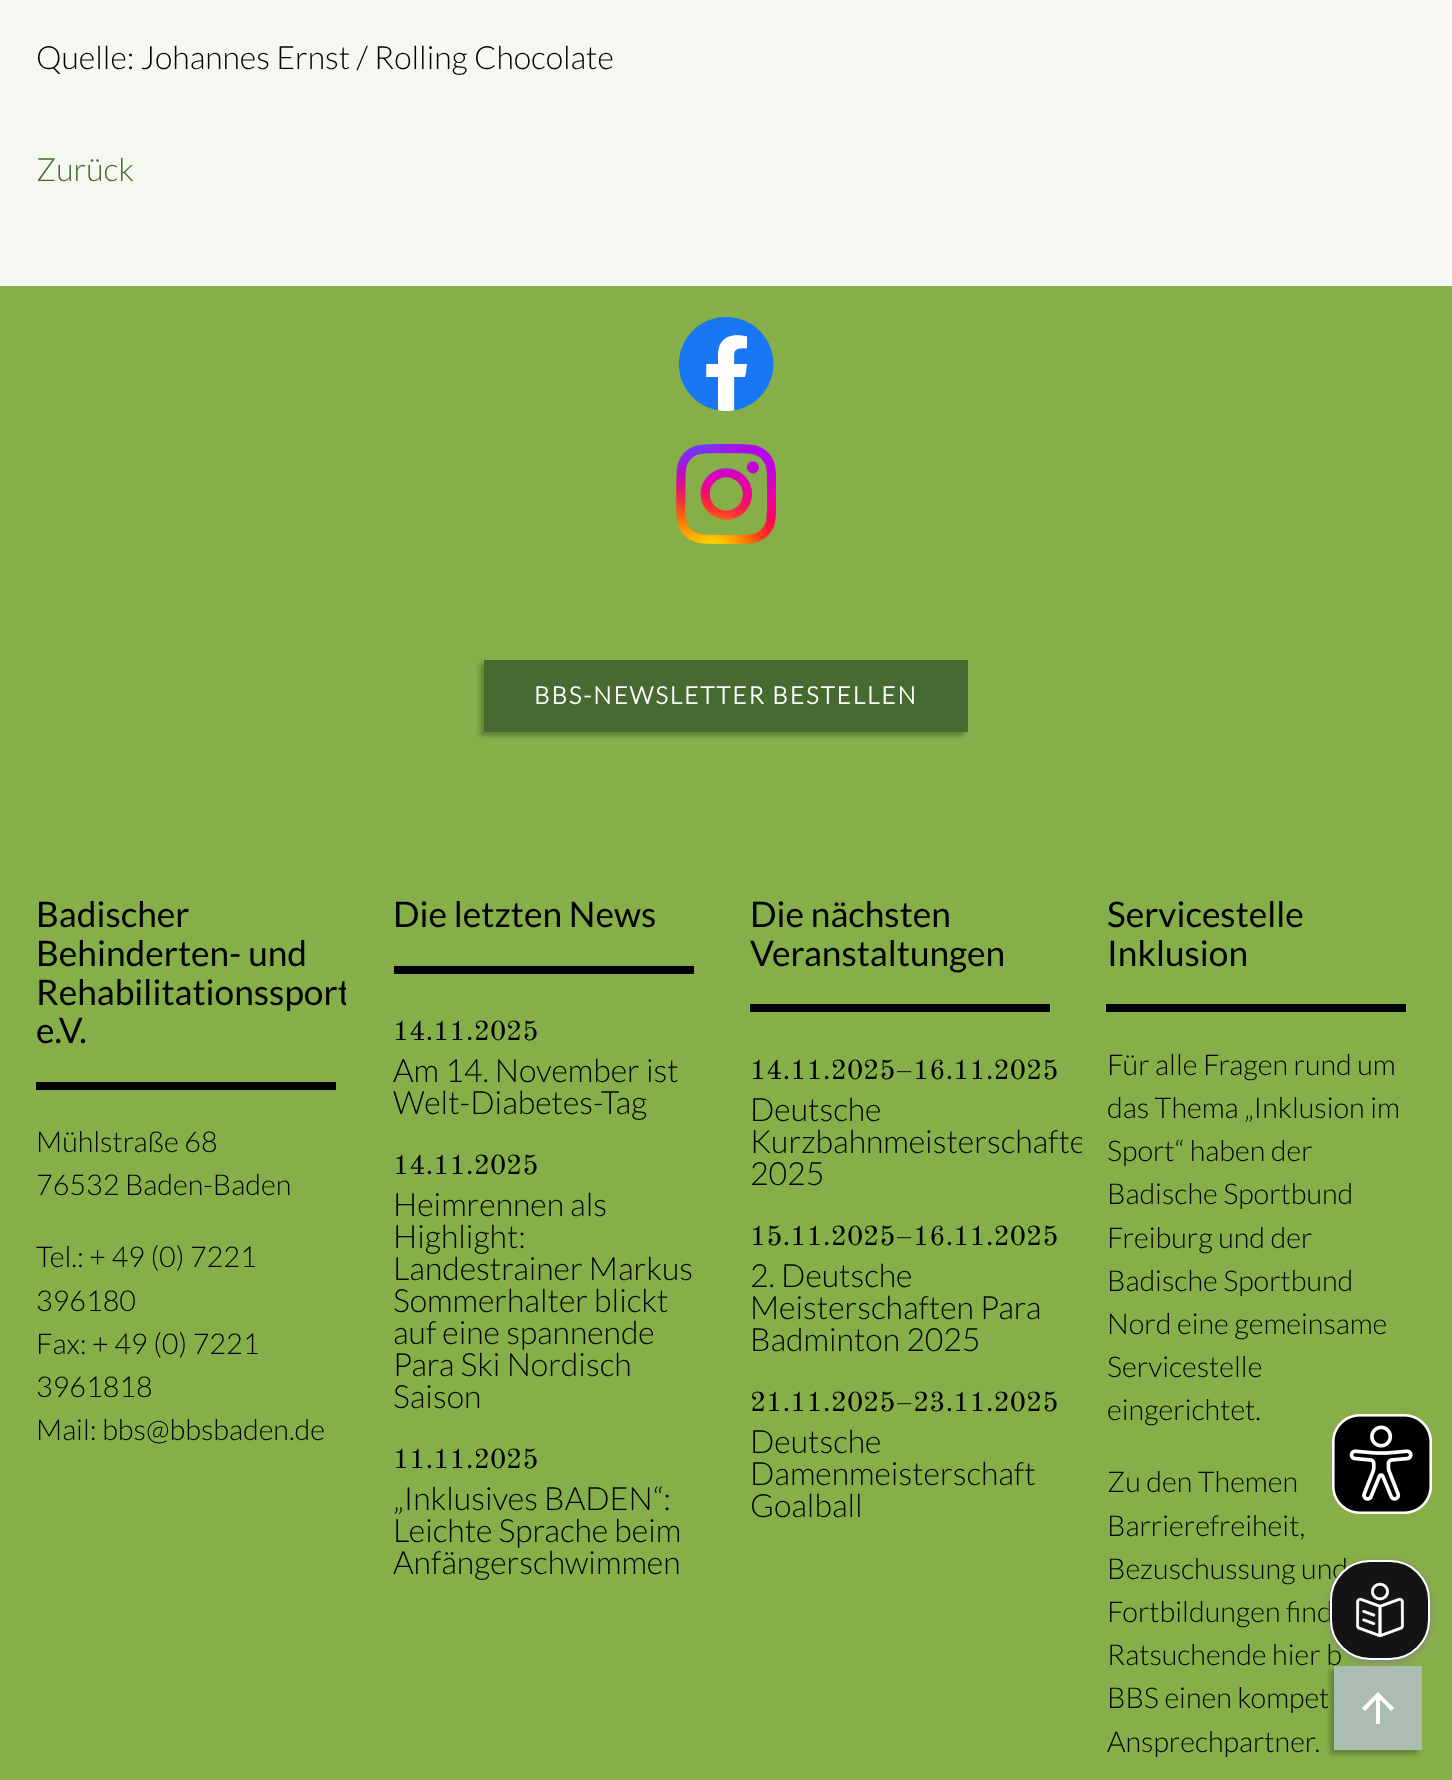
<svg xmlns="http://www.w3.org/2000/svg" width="1452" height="1780">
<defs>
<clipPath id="clip1"><rect x="36" y="860" width="310" height="620"/></clipPath>
<clipPath id="clip2"><rect x="726" y="860" width="356" height="680"/></clipPath>
</defs>
<rect width="100%" height="100%" fill="#f4f8f0"/>
<text x="36" y="69" style="font-family:Lato;font-size:32px;font-weight:300;fill:#000">Quelle: Johannes Ernst / Rolling Chocolate</text>
<text x="36" y="181" style="font-family:Lato;font-size:32px;font-weight:300;fill:#476a30">Zurück</text>
<rect y="286" width="1452" height="1494" fill="#86af49"/>
<image x="678" y="317" width="96" height="94" href="media/1.png"/>
<image x="676" y="444" width="100" height="100" href="media/2.png"/>
<rect x="480" y="664" width="484" height="72" fill="#00000040" filter="blur(2px)"/>
<rect x="484" y="660" width="484" height="72" fill="#476a30"/>
<text x="534" y="704" style="font-family:Lato;font-size:24px;font-weight:bold;letter-spacing:2px;fill:#fff">BBS-NEWSLETTER BESTELLEN</text>
<text x="36" y="927" style="font-family:Lato;font-size:35.25px;fill:#000">Badischer</text>
<text x="36" y="966" style="font-family:Lato;font-size:35.25px;fill:#000">Behinderten- und</text>
<g clip-path="url(#clip1)">
<text x="36" y="1005" style="font-family:Lato;font-size:35.25px;fill:#000">Rehabilitationssport</text>
</g>
<text x="36" y="1043" style="font-family:Lato;font-size:35.25px;fill:#000">e.V.</text>
<rect x="36" y="1082" width="300" height="8" fill="#000"/>
<text x="36" y="1152" style="font-family:Lato;font-size:28.75px;font-weight:300;fill:#000">Mühlstraße 68</text>
<text x="36" y="1195" style="font-family:Lato;font-size:28.75px;font-weight:300;fill:#000">76532 Baden-Baden</text>
<text x="36" y="1267" style="font-family:Lato;font-size:28.75px;font-weight:300;fill:#000">Tel.: + 49 (0) 7221</text>
<text x="36" y="1311" style="font-family:Lato;font-size:28.75px;font-weight:300;fill:#000">396180</text>
<text x="36" y="1354" style="font-family:Lato;font-size:28.75px;font-weight:300;fill:#000">Fax: + 49 (0) 7221</text>
<text x="36" y="1397" style="font-family:Lato;font-size:28.75px;font-weight:300;fill:#000">3961818</text>
<text x="36" y="1440" style="font-family:Lato;font-size:28.75px;font-weight:300;fill:#000">Mail: bbs@bbsbaden.de</text>
<text x="393" y="927" style="font-family:Lato;font-size:35.25px;fill:#000">Die letzten News</text>
<rect x="394" y="966" width="300" height="8" fill="#000"/>
<text x="393" y="1040" style="font-family:Old Standard TT;font-size:28px;fill:#000">14.11.2025</text>
<text x="393" y="1082" style="font-family:Lato;font-size:32px;font-weight:300;fill:#000">Am 14. November ist</text>
<text x="393" y="1114" style="font-family:Lato;font-size:32px;font-weight:300;fill:#000">Welt-Diabetes-Tag</text>
<text x="393" y="1174" style="font-family:Old Standard TT;font-size:28px;fill:#000">14.11.2025</text>
<text x="393" y="1216" style="font-family:Lato;font-size:32px;font-weight:300;fill:#000">Heimrennen als</text>
<text x="393" y="1248" style="font-family:Lato;font-size:32px;font-weight:300;fill:#000">Highlight:</text>
<text x="393" y="1280" style="font-family:Lato;font-size:32px;font-weight:300;fill:#000">Landestrainer Markus</text>
<text x="393" y="1312" style="font-family:Lato;font-size:32px;font-weight:300;fill:#000">Sommerhalter blickt</text>
<text x="393" y="1344" style="font-family:Lato;font-size:32px;font-weight:300;fill:#000">auf eine spannende</text>
<text x="393" y="1376" style="font-family:Lato;font-size:32px;font-weight:300;fill:#000">Para Ski Nordisch</text>
<text x="393" y="1408" style="font-family:Lato;font-size:32px;font-weight:300;fill:#000">Saison</text>
<text x="393" y="1468" style="font-family:Old Standard TT;font-size:28px;fill:#000">11.11.2025</text>
<text x="393" y="1510" style="font-family:Lato;font-size:32px;font-weight:300;fill:#000">„Inklusives BADEN“:</text>
<text x="393" y="1542" style="font-family:Lato;font-size:32px;font-weight:300;fill:#000">Leichte Sprache beim</text>
<text x="393" y="1574" style="font-family:Lato;font-size:32px;font-weight:300;fill:#000">Anfängerschwimmen</text>
<text x="750" y="927" style="font-family:Lato;font-size:35.25px;fill:#000">Die nächsten</text>
<text x="750" y="966" style="font-family:Lato;font-size:35.25px;fill:#000">Veranstaltungen</text>
<rect x="750" y="1004" width="300" height="8" fill="#000"/>
<text x="750" y="1079" style="font-family:Old Standard TT;font-size:28px;fill:#000">14.11.2025–16.11.2025</text>
<text x="750" y="1121" style="font-family:Lato;font-size:32px;font-weight:300;fill:#000">Deutsche</text>
<g clip-path="url(#clip2)">
<text x="750" y="1153" style="font-family:Lato;font-size:32px;font-weight:300;fill:#000">Kurzbahnmeisterschafte</text>
</g>
<text x="750" y="1185" style="font-family:Lato;font-size:32px;font-weight:300;fill:#000">2025</text>
<text x="750" y="1245" style="font-family:Old Standard TT;font-size:28px;fill:#000">15.11.2025–16.11.2025</text>
<text x="750" y="1287" style="font-family:Lato;font-size:32px;font-weight:300;fill:#000">2. Deutsche</text>
<text x="750" y="1319" style="font-family:Lato;font-size:32px;font-weight:300;fill:#000">Meisterschaften Para</text>
<text x="750" y="1351" style="font-family:Lato;font-size:32px;font-weight:300;fill:#000">Badminton 2025</text>
<text x="750" y="1411" style="font-family:Old Standard TT;font-size:28px;fill:#000">21.11.2025–23.11.2025</text>
<text x="750" y="1453" style="font-family:Lato;font-size:32px;font-weight:300;fill:#000">Deutsche</text>
<text x="750" y="1485" style="font-family:Lato;font-size:32px;font-weight:300;fill:#000">Damenmeisterschaft</text>
<text x="750" y="1517" style="font-family:Lato;font-size:32px;font-weight:300;fill:#000">Goalball</text>
<text x="1107" y="927" style="font-family:Lato;font-size:35.25px;fill:#000">Servicestelle</text>
<text x="1107" y="966" style="font-family:Lato;font-size:35.25px;fill:#000">Inklusion</text>
<rect x="1106" y="1004" width="300" height="8" fill="#000"/>
<text x="1107" y="1075" style="font-family:Lato;font-size:28.75px;font-weight:300;fill:#000">Für alle Fragen rund um</text>
<text x="1107" y="1118" style="font-family:Lato;font-size:28.75px;font-weight:300;fill:#000">das Thema „Inklusion im</text>
<text x="1107" y="1161" style="font-family:Lato;font-size:28.75px;font-weight:300;fill:#000">Sport“ haben der</text>
<text x="1107" y="1204" style="font-family:Lato;font-size:28.75px;font-weight:300;fill:#000">Badische Sportbund</text>
<text x="1107" y="1248" style="font-family:Lato;font-size:28.75px;font-weight:300;fill:#000">Freiburg und der</text>
<text x="1107" y="1291" style="font-family:Lato;font-size:28.75px;font-weight:300;fill:#000">Badische Sportbund</text>
<text x="1107" y="1334" style="font-family:Lato;font-size:28.75px;font-weight:300;fill:#000">Nord eine gemeinsame</text>
<text x="1107" y="1377" style="font-family:Lato;font-size:28.75px;font-weight:300;fill:#000">Servicestelle</text>
<text x="1107" y="1420" style="font-family:Lato;font-size:28.75px;font-weight:300;fill:#000">eingerichtet.</text>
<text x="1107" y="1492" style="font-family:Lato;font-size:28.75px;font-weight:300;fill:#000">Zu den Themen</text>
<text x="1107" y="1536" style="font-family:Lato;font-size:28.75px;font-weight:300;fill:#000">Barrierefreiheit,</text>
<text x="1107" y="1579" style="font-family:Lato;font-size:28.75px;font-weight:300;fill:#000">Bezuschussung und</text>
<text x="1107" y="1622" style="font-family:Lato;font-size:28.75px;font-weight:300;fill:#000">Fortbildungen find</text>
<text x="1107" y="1665" style="font-family:Lato;font-size:28.75px;font-weight:300;fill:#000">Ratsuchende hier b</text>
<text x="1107" y="1708" style="font-family:Lato;font-size:28.75px;font-weight:300;fill:#000">BBS einen kompet</text>
<text x="1107" y="1752" style="font-family:Lato;font-size:28.75px;font-weight:300;fill:#000">Ansprechpartner.</text>
<rect x="1330" y="1670" width="88" height="84" fill="#00000040" filter="blur(2px)"/>
<rect x="1334" y="1666" width="88" height="84" fill="#abbdb1"/>
<path d="M1362 1708l16-16l16 16l-3 3l-11-11.5v24.5h-4v-24.5l-11 11.5z" fill="#fff"/>
<image x="1332" y="1414" width="100" height="100" href="media/3.png"/>
<rect x="1330" y="1562" width="100" height="100" rx="40" fill="#848484" filter="blur(3px)"/>
<rect x="1331" y="1561" width="98" height="98" rx="39" fill="#151414" stroke="#fff" stroke-width="2"/>
<image x="1356" y="1582" width="48" height="56" href="media/4.png"/>
</svg>
